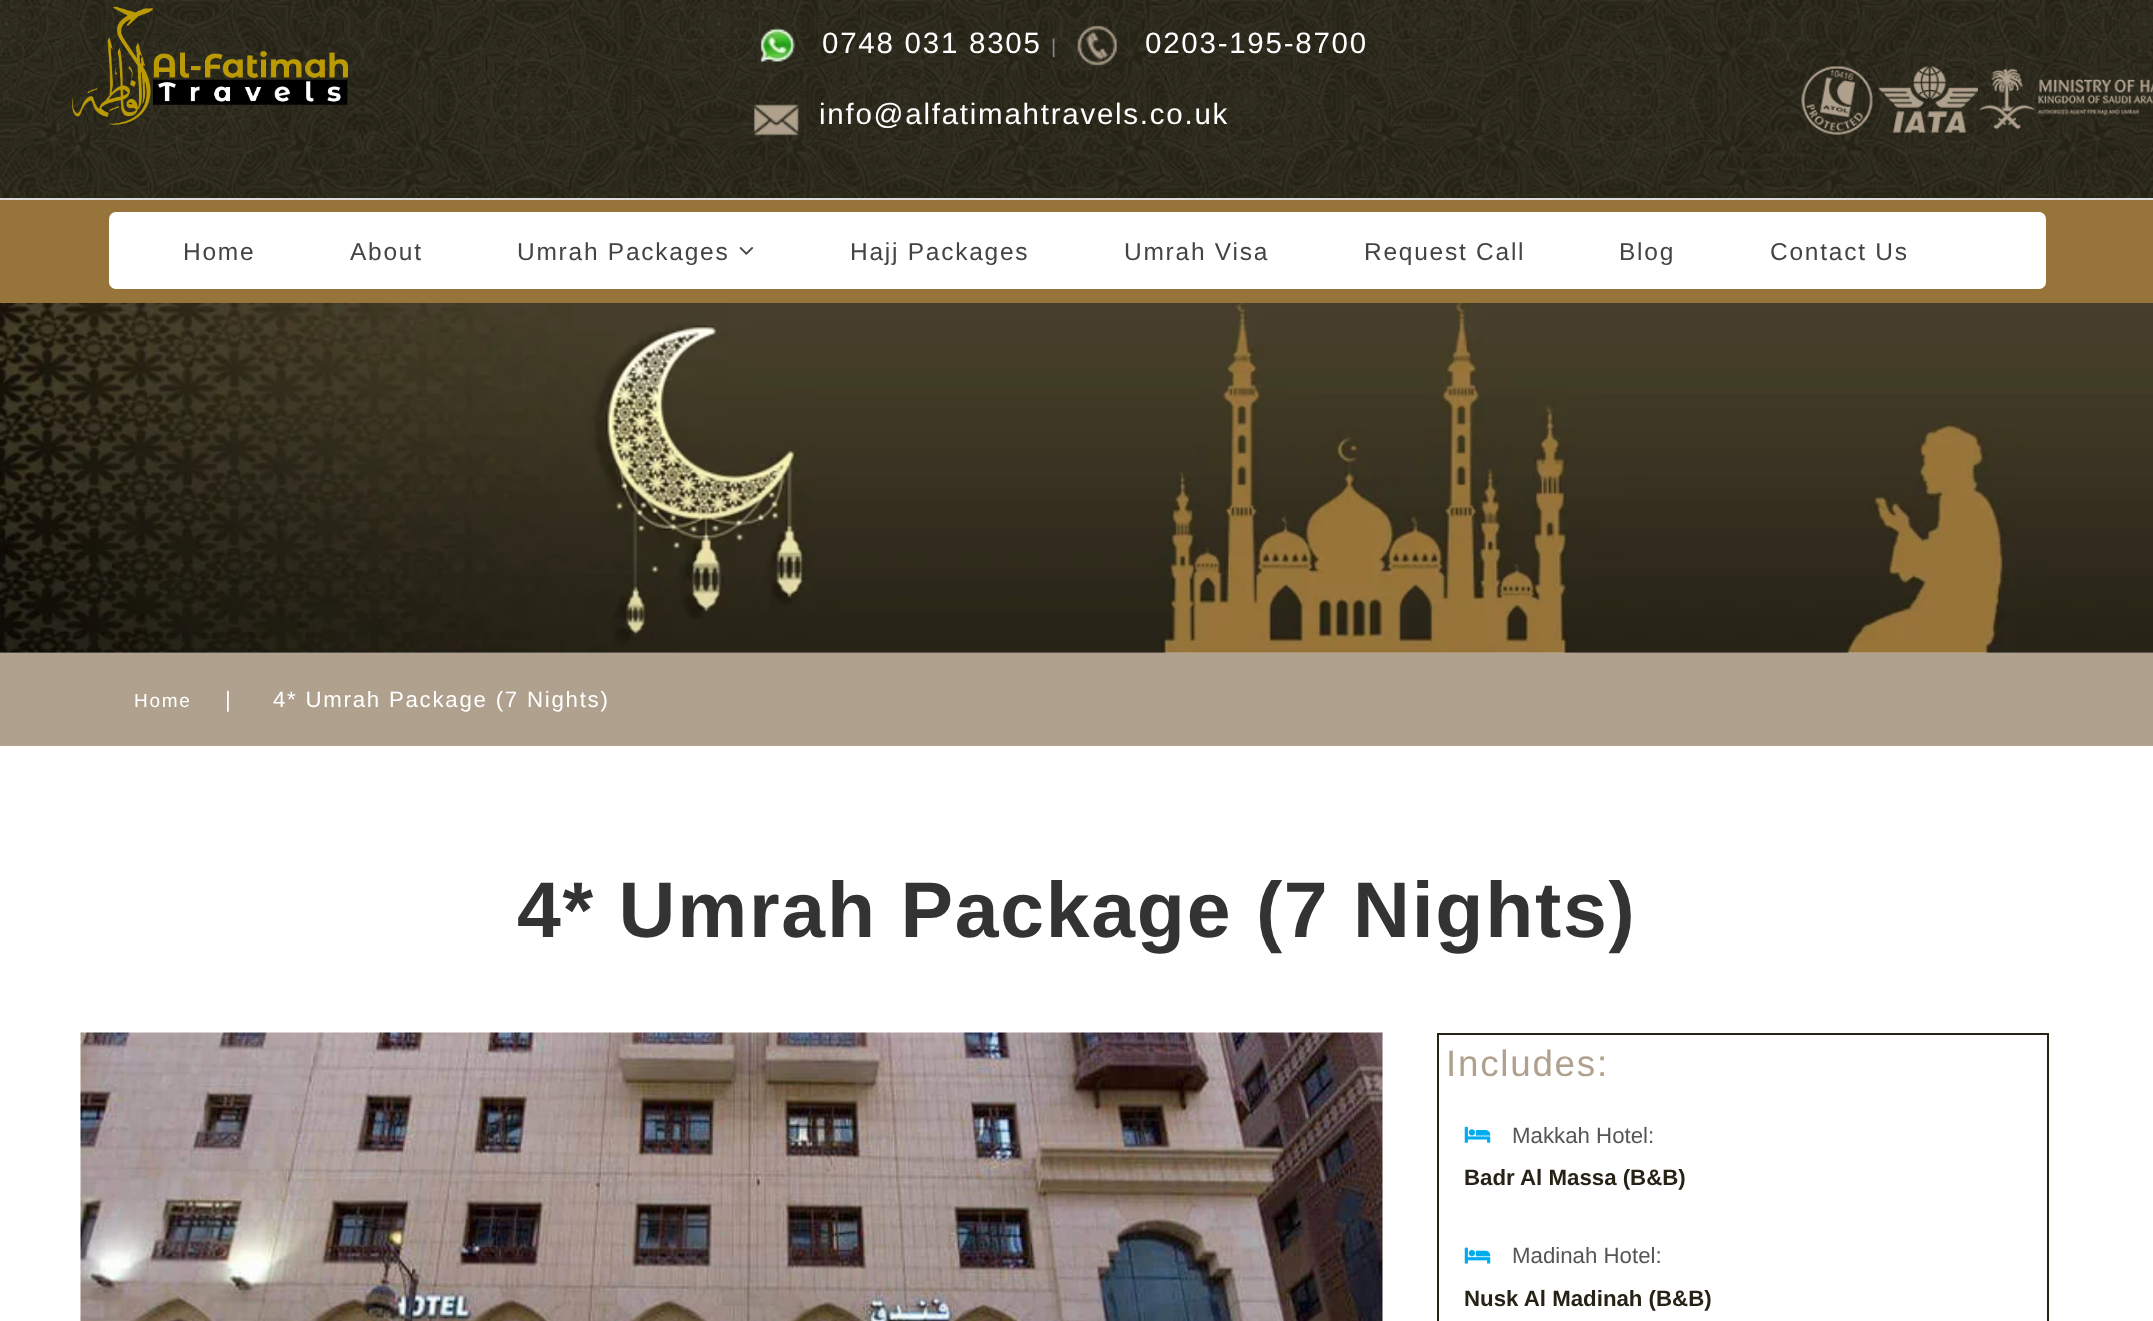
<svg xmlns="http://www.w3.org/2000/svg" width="2153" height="1321">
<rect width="100%" height="100%" fill="#fff"/>
<image x="0" y="0" width="2153" height="198" href="media/1.png"/>
<image x="72" y="6" width="276" height="119" href="media/2.png"/>
<image x="759" y="27" width="36" height="36" href="media/3.png"/>
<text x="822" y="53" style="font-family:Liberation Sans;font-size:29.5px;letter-spacing:1.75px;fill:#fff">0748 031 8305</text>
<text x="1051" y="53" style="font-family:Liberation Sans;font-size:20px;letter-spacing:1.75px;fill:#888">|</text>
<image x="1077" y="25" width="40" height="41" href="media/4.png"/>
<text x="1145" y="53" style="font-family:Liberation Sans;font-size:29.5px;letter-spacing:1.75px;fill:#fff">0203-195-8700</text>
<image x="753" y="104" width="46" height="32" href="media/5.png"/>
<text x="819" y="124" style="font-family:Liberation Sans;font-size:29.5px;letter-spacing:1.75px;fill:#fff">info@alfatimahtravels.co.uk</text>
<image x="1801" y="66" width="352" height="69" href="media/6.png"/>
<rect y="200" width="2153" height="103" fill="#97743a"/>
<rect y="198" width="2153" height="2" fill="#ddd"/>
<rect x="110" y="213" width="1935" height="75" rx="6" fill="#fff" stroke="#fff" stroke-width="2"/>
<text x="183" y="260" style="font-family:Liberation Sans;font-size:24.5px;letter-spacing:1.75px;fill:#444">Home</text>
<text x="350" y="260" style="font-family:Liberation Sans;font-size:24.5px;letter-spacing:1.75px;fill:#444">About</text>
<text x="517" y="260" style="font-family:Liberation Sans;font-size:24.5px;letter-spacing:1.75px;fill:#444">Umrah Packages</text>
<image x="739" y="247" width="15" height="8" href="media/7.png"/>
<text x="850" y="260" style="font-family:Liberation Sans;font-size:24.5px;letter-spacing:1.75px;fill:#444">Hajj Packages</text>
<text x="1124" y="260" style="font-family:Liberation Sans;font-size:24.5px;letter-spacing:1.75px;fill:#444">Umrah Visa</text>
<text x="1364" y="260" style="font-family:Liberation Sans;font-size:24.5px;letter-spacing:1.75px;fill:#444">Request Call</text>
<text x="1619" y="260" style="font-family:Liberation Sans;font-size:24.5px;letter-spacing:1.75px;fill:#444">Blog</text>
<text x="1770" y="260" style="font-family:Liberation Sans;font-size:24.5px;letter-spacing:1.75px;fill:#444">Contact Us</text>
<image x="0" y="303" width="2153" height="350" href="media/8.png"/>
<rect y="653" width="2153" height="93" fill="#b0a18e"/>
<text x="134" y="707" style="font-family:Liberation Sans;font-size:19px;letter-spacing:1.75px;fill:#fff">Home</text>
<text x="225" y="707" style="font-family:Liberation Sans;font-size:22.25px;letter-spacing:1.75px;fill:#fff">|</text>
<text x="273" y="707" style="font-family:Liberation Sans;font-size:22.25px;letter-spacing:1.75px;fill:#fff">4* Umrah Package (7 Nights)</text>
<text x="517" y="937" style="font-family:Liberation Sans;font-size:78.75px;font-weight:bold;letter-spacing:1.75px;fill:#333">4* Umrah Package (7 Nights)</text>
<image x="80" y="1032" width="1303" height="289" href="media/9.png"/>
<rect x="1438" y="1034" width="610" height="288" fill="none" stroke="#262216" stroke-width="2"/>
<text x="1446" y="1076" style="font-family:Liberation Sans;font-size:36.75px;letter-spacing:1.75px;fill:#b0a18e">Includes:</text>
<image x="1464" y="1126" width="27" height="17" href="media/10.png"/>
<text x="1512" y="1143" style="font-family:Liberation Sans;font-size:22.25px;fill:#555">Makkah Hotel:</text>
<text x="1464" y="1185" style="font-family:Liberation Sans;font-size:22.25px;font-weight:bold;fill:#262216">Badr Al Massa (B&amp;B)</text>
<image x="1464" y="1247" width="27" height="17" href="media/11.png"/>
<text x="1512" y="1263" style="font-family:Liberation Sans;font-size:22.25px;fill:#555">Madinah Hotel:</text>
<text x="1464" y="1306" style="font-family:Liberation Sans;font-size:22.25px;font-weight:bold;fill:#262216">Nusk Al Madinah (B&amp;B)</text>
</svg>
